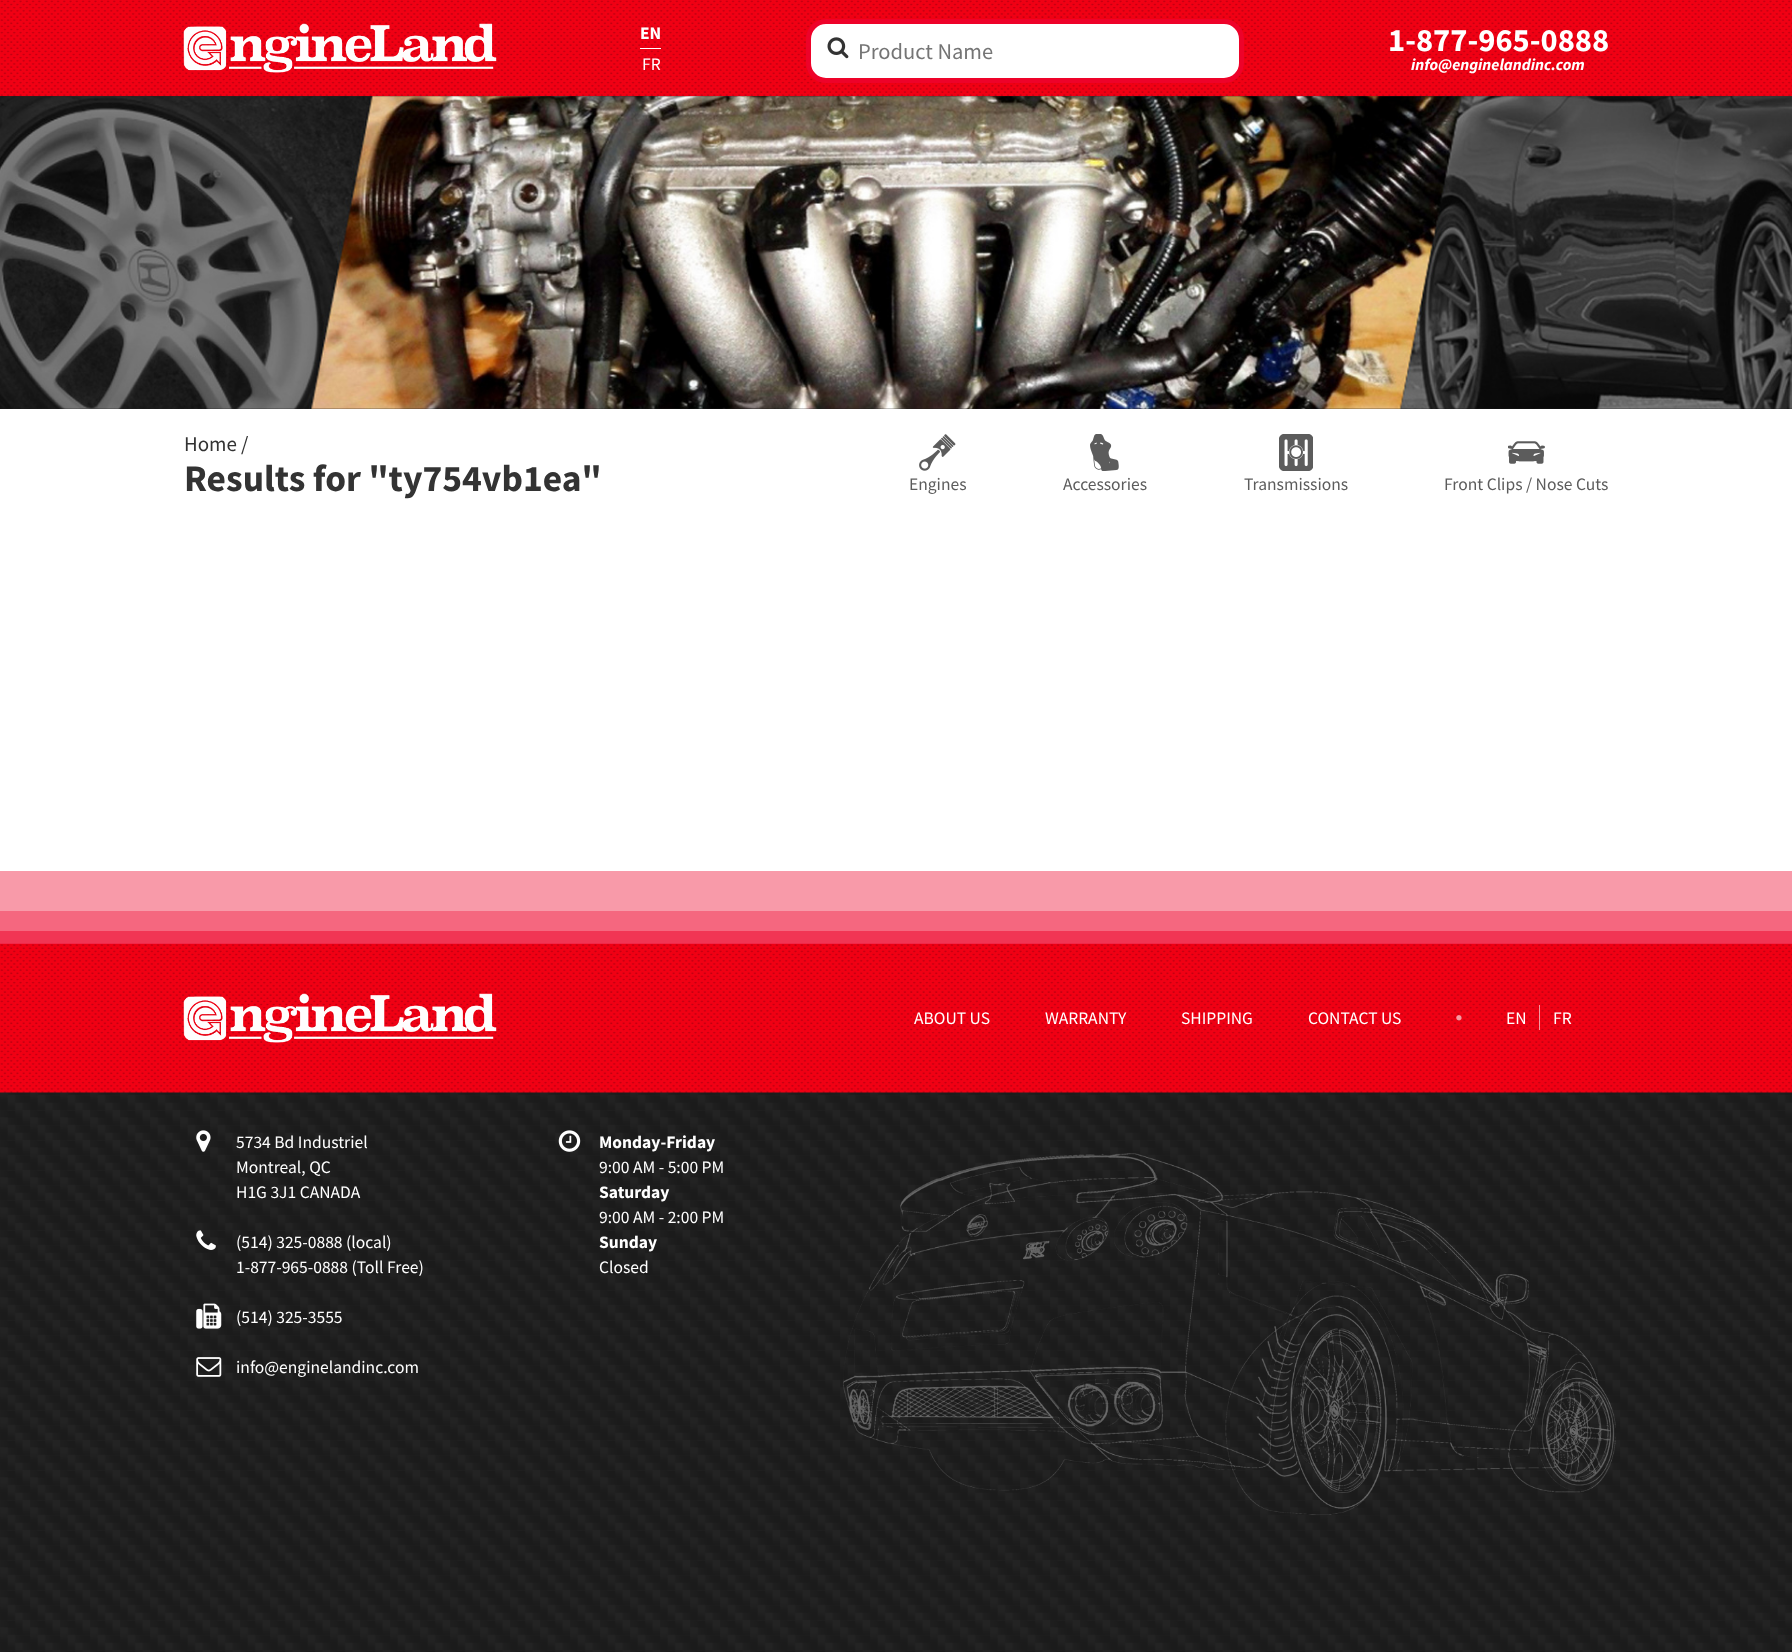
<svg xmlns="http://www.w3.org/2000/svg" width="1792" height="1652">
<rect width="100%" height="100%" fill="#fff"/>
<image x="0" y="96" width="1792" height="1556" href="media/1.png"/>
<image x="0" y="0" width="1792" height="97" href="media/2.png"/>
<image x="183" y="23" width="314" height="50" href="media/3.png"/>
<rect x="640" y="48" width="21" height="1" fill="#fff"/>
<text x="640" y="39" style="font-family:Source Sans Pro;font-size:17.5px;font-weight:bold;fill:#fff">EN</text>
<text x="642" y="70" style="font-family:Source Sans Pro;font-size:17.5px;fill:#fff">FR</text>
<rect x="808.5" y="21.5" width="433" height="59" rx="17.5" fill="#fff" stroke="#ee0229" stroke-width="5"/>
<image x="827" y="37" width="22" height="22" href="media/4.png"/>
<text x="858" y="59" style="font-family:Source Sans Pro;font-size:22.5px;fill:#757575">Product Name</text>
<text x="1388" y="51" style="font-family:Source Sans Pro;font-size:32.5px;font-weight:bold;fill:#fff">1-877-965-0888</text>
<text x="1411" y="70" style="font-family:Source Sans Pro;font-size:16.25px;font-weight:bold;font-style:italic;fill:#fff">info@enginelandinc.com</text>
<image x="0" y="96" width="1792" height="313" href="media/5.png"/>
<rect y="409" width="1792" height="535" fill="#fff"/>
<text x="184" y="451" style="font-family:Source Sans Pro;font-size:21px;fill:#333">Home</text>
<text x="241" y="451" style="font-family:Source Sans Pro;font-size:21px;fill:#333">/</text>
<text x="184" y="491" style="font-family:Source Sans Pro;font-size:37.5px;font-weight:bold;fill:#333">Results for "ty754vb1ea"</text>
<image x="919" y="434" width="37" height="37" href="media/6.png"/>
<text x="909" y="490" style="font-family:Source Sans Pro;font-size:17.5px;fill:#5c5c5c">Engines</text>
<image x="1090" y="434" width="29" height="37" href="media/7.png"/>
<text x="1063" y="490" style="font-family:Source Sans Pro;font-size:17.5px;fill:#5c5c5c">Accessories</text>
<image x="1279" y="434" width="34" height="37" href="media/8.png"/>
<text x="1244" y="490" style="font-family:Source Sans Pro;font-size:17.5px;fill:#5c5c5c">Transmissions</text>
<image x="1508" y="441" width="37" height="23" href="media/9.png"/>
<text x="1444" y="490" style="font-family:Source Sans Pro;font-size:17.5px;fill:#5c5c5c">Front Clips / Nose Cuts</text>
<image x="0" y="943" width="1792" height="150" href="media/10.png"/>
<rect y="871" width="1792" height="40" fill="#f89aa9"/>
<rect y="911" width="1792" height="20" fill="#f5677f"/>
<rect y="931" width="1792" height="13" fill="#ee0229cc"/>
<image x="183" y="993" width="314" height="50" href="media/11.png"/>
<text x="914" y="1024" style="font-family:Source Sans Pro;font-size:17.5px;fill:#fff">ABOUT US</text>
<text x="1045" y="1024" style="font-family:Source Sans Pro;font-size:17.5px;fill:#fff">WARRANTY</text>
<text x="1181" y="1024" style="font-family:Source Sans Pro;font-size:17.5px;fill:#fff">SHIPPING</text>
<text x="1308" y="1024" style="font-family:Source Sans Pro;font-size:17.5px;fill:#fff">CONTACT US</text>
<image x="1456" y="1015" width="6" height="6" href="media/12.png"/>
<rect x="1539" y="1005" width="1" height="25" fill="#ffffff99"/>
<text x="1506" y="1024" style="font-family:Source Sans Pro;font-size:17.5px;fill:#fff">EN</text>
<text x="1553" y="1024" style="font-family:Source Sans Pro;font-size:17.5px;fill:#fff">FR</text>
<image x="196" y="1130" width="15" height="22" href="media/13.png"/>
<text x="236" y="1148" style="font-family:Source Sans Pro;font-size:17.5px;fill:#fff">5734 Bd Industriel</text>
<text x="236" y="1173" style="font-family:Source Sans Pro;font-size:17.5px;fill:#fff">Montreal, QC</text>
<text x="236" y="1198" style="font-family:Source Sans Pro;font-size:17.5px;fill:#fff">H1G 3J1 CANADA</text>
<image x="196" y="1230" width="20" height="20" href="media/14.png"/>
<text x="236" y="1248" style="font-family:Source Sans Pro;font-size:17.5px;fill:#fff">(514) 325-0888 (local)</text>
<text x="236" y="1273" style="font-family:Source Sans Pro;font-size:17.5px;fill:#fff">1-877-965-0888 (Toll Free)</text>
<image x="196" y="1303" width="26" height="26" href="media/15.png"/>
<text x="236" y="1323" style="font-family:Source Sans Pro;font-size:17.5px;fill:#fff">(514) 325-3555</text>
<image x="196" y="1357" width="26" height="20" href="media/16.png"/>
<text x="236" y="1373" style="font-family:Source Sans Pro;font-size:17.5px;fill:#fff">info@enginelandinc.com</text>
<image x="558" y="1130" width="23" height="22" href="media/17.png"/>
<text x="599" y="1148" style="font-family:Source Sans Pro;font-size:17.5px;font-weight:bold;fill:#fff">Monday-Friday</text>
<text x="599" y="1173" style="font-family:Source Sans Pro;font-size:17.5px;fill:#fff">9:00 AM - 5:00 PM</text>
<text x="599" y="1198" style="font-family:Source Sans Pro;font-size:17.5px;font-weight:bold;fill:#fff">Saturday</text>
<text x="599" y="1223" style="font-family:Source Sans Pro;font-size:17.5px;fill:#fff">9:00 AM - 2:00 PM</text>
<text x="599" y="1248" style="font-family:Source Sans Pro;font-size:17.5px;font-weight:bold;fill:#fff">Sunday</text>
<text x="599" y="1273" style="font-family:Source Sans Pro;font-size:17.5px;fill:#fff">Closed</text>
<image x="843" y="1153" width="773" height="362" href="media/18.png"/>
</svg>
